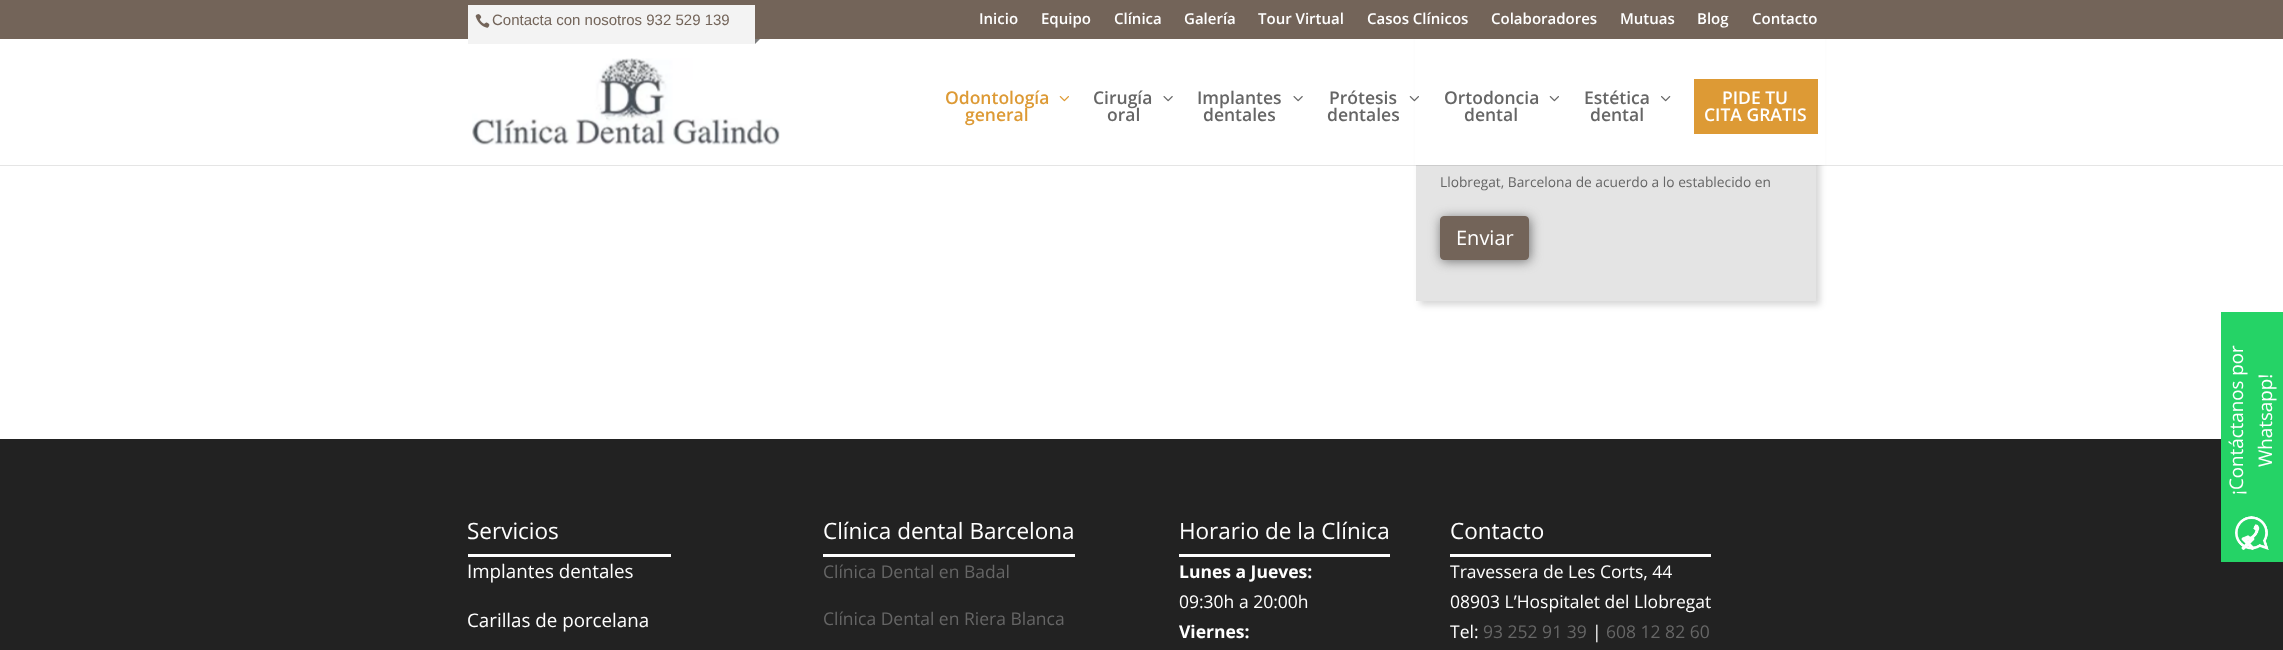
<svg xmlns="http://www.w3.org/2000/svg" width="2283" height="650">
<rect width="100%" height="100%" fill="#fff"/>
<rect x="1420" y="-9" width="400" height="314" fill="#32323233" filter="blur(3px)"/>
<rect width="2283" height="39" fill="#736459"/>
<rect x="468" y="5" width="287" height="39" fill="#f3f3f3"/>
<image x="475" y="14" width="15" height="14" href="media/1.png"/>
<text x="492" y="25" style="font-family:Liberation Sans;font-size:15px;fill:#736459">Contacta con nosotros 932 529 139</text>
<path d="M755 39h5l-5 5z" fill="#7d7d7d"/>
<text x="979" y="24" style="font-family:Open Sans;font-size:15px;font-weight:600;fill:#fff">Inicio</text>
<text x="1041" y="24" style="font-family:Open Sans;font-size:15px;font-weight:600;fill:#fff">Equipo</text>
<text x="1114" y="24" style="font-family:Open Sans;font-size:15px;font-weight:600;fill:#fff">Clínica</text>
<text x="1184" y="24" style="font-family:Open Sans;font-size:15px;font-weight:600;fill:#fff">Galería</text>
<text x="1258" y="24" style="font-family:Open Sans;font-size:15px;font-weight:600;fill:#fff">Tour Virtual</text>
<text x="1367" y="24" style="font-family:Open Sans;font-size:15px;font-weight:600;fill:#fff">Casos Clínicos</text>
<text x="1491" y="24" style="font-family:Open Sans;font-size:15px;font-weight:600;fill:#fff">Colaboradores</text>
<text x="1620" y="24" style="font-family:Open Sans;font-size:15px;font-weight:600;fill:#fff">Mutuas</text>
<text x="1697" y="24" style="font-family:Open Sans;font-size:15px;font-weight:600;fill:#fff">Blog</text>
<text x="1752" y="24" style="font-family:Open Sans;font-size:15px;font-weight:600;fill:#fff">Contacto</text>
<rect x="1416" y="165" width="400" height="136" fill="#e4e4e4"/>
<path d="M0 165v1h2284v-127v126z" fill="#0000001a"/>
<rect x="1415" y="39" width="410" height="126" fill="#fff"/>
<image x="472" y="58" width="308" height="87" href="media/2.png"/>
<text x="945" y="104" style="font-family:Open Sans;font-size:17.5px;font-weight:600;fill:#dd9a35">Odontología</text>
<image x="1059" y="96" width="10" height="6" href="media/3.png"/>
<text x="965" y="121" style="font-family:Open Sans;font-size:17.5px;font-weight:600;fill:#dd9a35">general</text>
<text x="1093" y="104" style="font-family:Open Sans;font-size:17.5px;font-weight:600;fill:#666">Cirugía</text>
<image x="1163" y="96" width="10" height="6" href="media/4.png"/>
<text x="1107" y="121" style="font-family:Open Sans;font-size:17.5px;font-weight:600;fill:#666">oral</text>
<text x="1197" y="104" style="font-family:Open Sans;font-size:17.5px;font-weight:600;fill:#666">Implantes</text>
<image x="1293" y="96" width="10" height="6" href="media/4.png"/>
<text x="1203" y="121" style="font-family:Open Sans;font-size:17.5px;font-weight:600;fill:#666">dentales</text>
<text x="1329" y="104" style="font-family:Open Sans;font-size:17.5px;font-weight:600;fill:#666">Prótesis</text>
<image x="1409" y="96" width="10" height="6" href="media/5.png"/>
<text x="1327" y="121" style="font-family:Open Sans;font-size:17.5px;font-weight:600;fill:#666">dentales</text>
<text x="1444" y="104" style="font-family:Open Sans;font-size:17.5px;font-weight:600;fill:#666">Ortodoncia</text>
<image x="1549" y="96" width="10" height="6" href="media/5.png"/>
<text x="1464" y="121" style="font-family:Open Sans;font-size:17.5px;font-weight:600;fill:#666">dental</text>
<text x="1584" y="104" style="font-family:Open Sans;font-size:17.5px;font-weight:600;fill:#666">Estética</text>
<image x="1661" y="96" width="10" height="6" href="media/6.png"/>
<text x="1590" y="121" style="font-family:Open Sans;font-size:17.5px;font-weight:600;fill:#666">dental</text>
<rect x="1694" y="79" width="124" height="55" fill="#dd9a35"/>
<text x="1722" y="104" style="font-family:Open Sans;font-size:17.5px;font-weight:600;fill:#fff">PIDE TU</text>
<text x="1704" y="121" style="font-family:Open Sans;font-size:17.5px;font-weight:600;fill:#fff">CITA GRATIS</text>
<text x="1440" y="187" style="font-family:Open Sans;font-size:13.75px;fill:#666">Llobregat, Barcelona de acuerdo a lo establecido en</text>
<rect x="1441" y="218" width="89" height="43" rx="4" fill="#6d6d6d" filter="blur(6px)"/>
<rect x="1440.5" y="216.5" width="88" height="43" rx="3.5" fill="#736459" stroke="#736459"/>
<text x="1456" y="245" style="font-family:Open Sans;font-size:20px;fill:#fff">Enviar</text>
<rect y="439" width="2283" height="211" fill="#222"/>
<rect x="2221" y="312" width="62" height="250" fill="#25d366"/>
<text x="2243" y="495" transform="rotate(-90 2243 495)" style="font-family:Open Sans;font-size:18.75px;fill:#fff">¡Contáctanos por</text>
<text x="2272" y="467" transform="rotate(-90 2272 467)" style="font-family:Open Sans;font-size:18.75px;fill:#fff">Whatsapp!</text>
<image x="2235" y="516" width="34" height="34" href="media/7.png"/>
<image x="2241" y="537" width="14" height="13" href="media/8.png"/>
<rect x="468" y="554" width="203" height="3" fill="#fff"/>
<text x="467" y="539" style="font-family:Open Sans;font-size:22.5px;fill:#fff">Servicios</text>
<text x="467" y="578" style="font-family:Open Sans;font-size:18.75px;fill:#fff">Implantes dentales</text>
<text x="467" y="627" style="font-family:Open Sans;font-size:18.75px;fill:#fff">Carillas de porcelana</text>
<rect x="823" y="554" width="252" height="3" fill="#fff"/>
<text x="823" y="539" style="font-family:Open Sans;font-size:22.5px;fill:#fff">Clínica dental Barcelona</text>
<text x="823" y="578" style="font-family:Open Sans;font-size:17.5px;fill:#666">Clínica Dental en Badal</text>
<text x="823" y="625" style="font-family:Open Sans;font-size:17.5px;fill:#666">Clínica Dental en Riera Blanca</text>
<rect x="1179" y="554" width="211" height="3" fill="#fff"/>
<text x="1179" y="539" style="font-family:Open Sans;font-size:22.5px;fill:#fff">Horario de la Clínica</text>
<text x="1179" y="578" style="font-family:Open Sans;font-size:17.5px;font-weight:bold;fill:#fff">Lunes a Jueves:</text>
<text x="1179" y="608" style="font-family:Open Sans;font-size:17.5px;fill:#fff">09:30h a 20:00h</text>
<text x="1179" y="638" style="font-family:Open Sans;font-size:17.5px;font-weight:bold;fill:#fff">Viernes:</text>
<rect x="1450" y="554" width="261" height="3" fill="#fff"/>
<text x="1450" y="539" style="font-family:Open Sans;font-size:22.5px;fill:#fff">Contacto</text>
<text x="1450" y="578" style="font-family:Open Sans;font-size:17.5px;fill:#fff">Travessera de Les Corts, 44</text>
<text x="1450" y="608" style="font-family:Open Sans;font-size:17.5px;fill:#fff">08903 L’Hospitalet del Llobregat</text>
<text x="1450" y="638" style="font-family:Open Sans;font-size:17.5px;fill:#fff">Tel:</text>
<text x="1483" y="638" style="font-family:Open Sans;font-size:17.5px;fill:#666">93 252 91 39</text>
<text x="1592" y="638" style="font-family:Open Sans;font-size:17.5px;fill:#fff">|</text>
<text x="1606" y="638" style="font-family:Open Sans;font-size:17.5px;fill:#666">608 12 82 60</text>
</svg>
